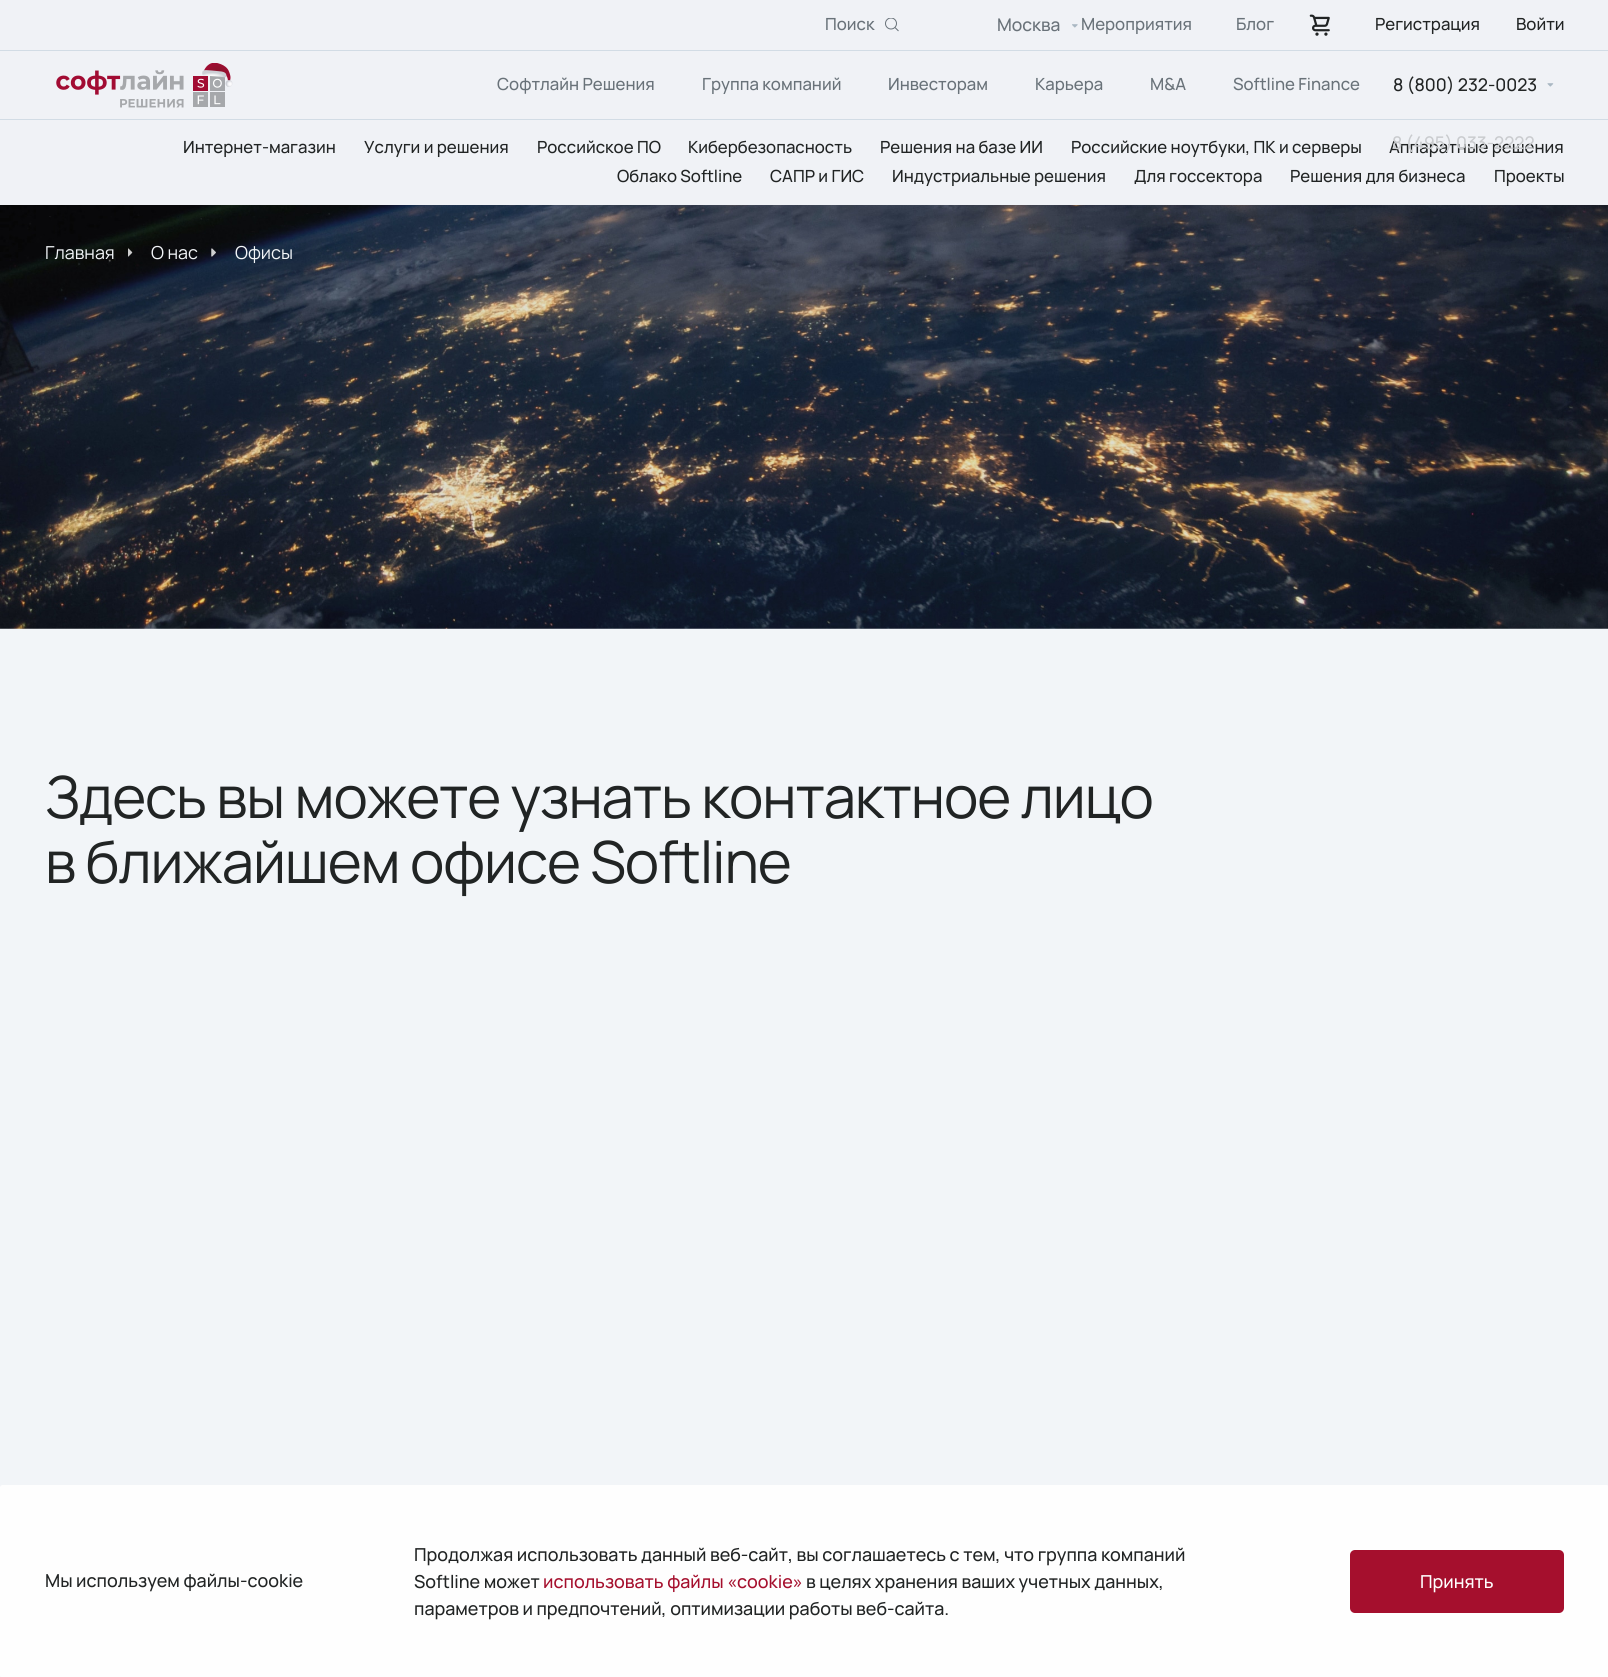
import math
import cairo

surface = cairo.ImageSurface(cairo.FORMAT_RGB24, 1608, 1677)
c = cairo.Context(surface)
options = cairo.FontOptions()
options.set_hint_metrics(cairo.HINT_METRICS_OFF)
options.set_hint_style(cairo.HINT_STYLE_NONE)
c.set_font_options(options)
c.set_miter_limit(4)
def C(code):
 c.set_source_rgb(*(v / 255 for v in bytes.fromhex(code[-6:])))
def F(family, size, italic, bold):
 c.select_font_face(family, cairo.FONT_SLANT_ITALIC if italic else cairo.FONT_SLANT_NORMAL, cairo.FONT_WEIGHT_BOLD if bold else cairo.FONT_WEIGHT_NORMAL)
 c.set_font_size(size)
def T(x, y, s):
 c.move_to(x, y)
 c.show_text(s)
def L(x, y, s, letter, word):
 c.move_to(x, y)
 for ch in s:
  c.show_text(ch)
  c.rel_move_to(letter + word * (ch == ' '), 0)
def R(x, y, w, h):
 c.rectangle(x, y, w, h)
 c.fill()
def Q(x, y, w, h, r):
 c.new_sub_path()
 for i, (u, v) in enumerate([(x + w - r, y + h - r), (x + r, y + h - r), (x + r, y + r), (x + w - r, y + r)]):
  c.arc(u, v, r, i * math.pi / 2, (i + 1) * math.pi / 2)
 c.close_path()
def I(path, x, y, w, h):
 c.save()
 c.set_source_surface(cairo.ImageSurface.create_from_png(path), x, y)
 c.rectangle(x, y, w, h)
 c.fill()
 c.restore()
C('f2f5f8')
c.paint()
C('f0f2f6')
R(0,0,1608,50)
C('d2dce5')
R(0,50,1608,1)
F('Manrope Medium',16.75,0,0)
C('697279')
T(825,30,'Поиск')
c.save()
c.rectangle(885,18,14,15)
c.clip()
c.arc(891,23.5,5.5,0,2 * math.pi)
c.set_line_width(1)
c.stroke()
c.restore()
c.new_path()
c.move_to(898.5,31)
c.line_to(895,27.5)
c.set_line_width(1)
c.stroke()
F('Manrope Medium',17.5,0,0)
T(997,31,'Москва')
I('1.png',1072,24,6,4)
F('Manrope Medium',16.75,0,0)
T(1081,30,'Мероприятия')
T(1236,30,'Блог')
I('2.png',1309,14,21,22)
C('212424')
T(1375,30,'Регистрация')
T(1516,30,'Войти')
C('f0f2f6')
R(0,51,1608,68)
C('d2dce5')
R(0,119,1608,1)
I('3.png',56,63,177,45)
C('697279')
T(497,90,'Софтлайн Решения')
T(702,90,'Группа компаний')
T(888,90,'Инвесторам')
T(1035,90,'Карьера')
T(1150,90,'M&A')
T(1233,90,'Softline Finance')
F('Manrope Medium',17.5,0,0)
C('212424')
T(1393,91,'8 (800) 232-0023')
I('4.png',1547,83,7,4)
C('f0f2f6')
R(0,120,1608,85)
F('Manrope Medium',16.75,0,0)
C('212424')
T(1389,153,'Аппаратные решения')
F('Manrope Medium',17.5,0,0)
C('c9cbce')
T(1392,149,'8 (495) 033-2222')
F('Manrope Medium',16.75,0,0)
C('212424')
T(183,153,'Интернет-магазин')
T(364,153,'Услуги и решения')
T(537,153,'Российское ПО')
T(688,153,'Кибербезопасность')
T(880,153,'Решения на базе ИИ')
T(1071,153,'Российские ноутбуки, ПК и серверы')
T(617,182,'Облако Softline')
T(770,182,'САПР и ГИС')
T(892,182,'Индустриальные решения')
T(1134,182,'Для госсектора')
T(1290,182,'Решения для бизнеса')
T(1494,182,'Проекты')
I('5.png',0,205,1608,424)
F('Manrope',17.9,0,0)
C('f2f5f8')
T(45,259,'Главная')
I('6.png',128,248,5,9)
T(151,259,'О нас')
I('7.png',211,248,5,9)
T(235,259,'Офисы')
F('Manrope',58.1,0,0)
C('212424')
L(45,818,'Здесь вы можете узнать контактное лицо',-1.15,0)
L(45,883,'в ближайшем офисе Softline',-1.15,0)
C('fefefe')
Q(0,1485,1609,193,2.5)
c.fill()
F('Manrope Medium',17.9,0,0)
C('212424')
T(45,1587,'Мы используем файлы-cookie')
T(414,1561,'Продолжая использовать данный веб-сайт, вы соглашаетесь с тем, что группа компаний')
T(414,1588,'Softline может')
C('a50f2d')
T(543,1588,'использовать файлы «cookie»')
C('212424')
T(806,1588,'в целях хранения ваших учетных данных,')
T(414,1615,'параметров и предпочтений, оптимизации работы веб-сайта.')
C('a50f2d')
Q(1350,1550,214,63,5)
c.fill()
C('ffffff')
T(1420,1588,'Принять')
surface.write_to_png('o.png')
